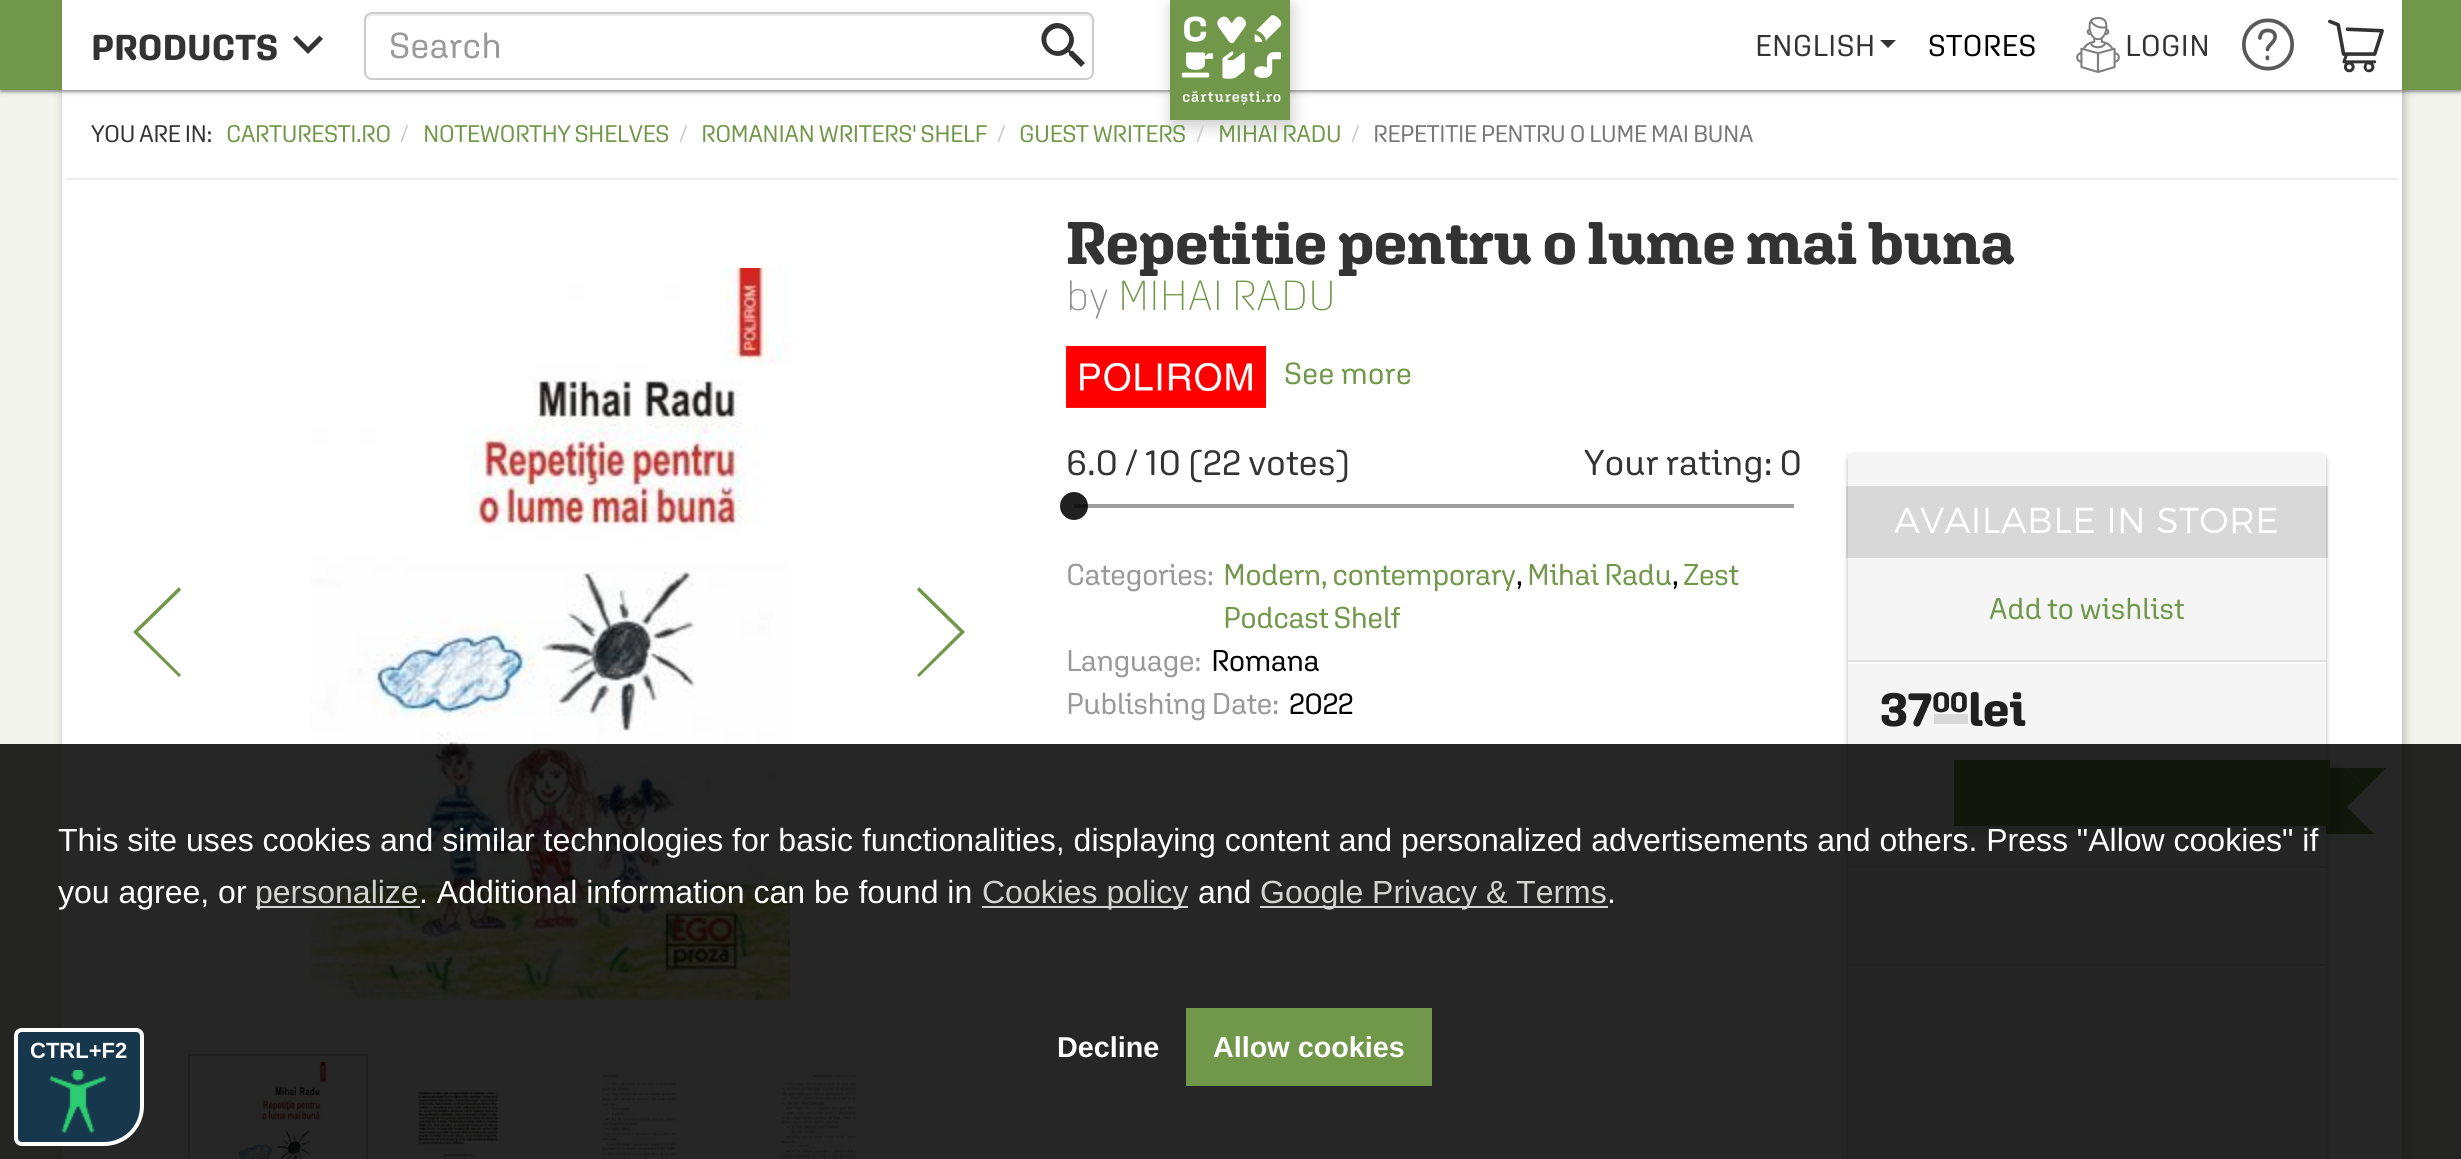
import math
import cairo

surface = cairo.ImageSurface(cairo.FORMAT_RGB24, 2461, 1159)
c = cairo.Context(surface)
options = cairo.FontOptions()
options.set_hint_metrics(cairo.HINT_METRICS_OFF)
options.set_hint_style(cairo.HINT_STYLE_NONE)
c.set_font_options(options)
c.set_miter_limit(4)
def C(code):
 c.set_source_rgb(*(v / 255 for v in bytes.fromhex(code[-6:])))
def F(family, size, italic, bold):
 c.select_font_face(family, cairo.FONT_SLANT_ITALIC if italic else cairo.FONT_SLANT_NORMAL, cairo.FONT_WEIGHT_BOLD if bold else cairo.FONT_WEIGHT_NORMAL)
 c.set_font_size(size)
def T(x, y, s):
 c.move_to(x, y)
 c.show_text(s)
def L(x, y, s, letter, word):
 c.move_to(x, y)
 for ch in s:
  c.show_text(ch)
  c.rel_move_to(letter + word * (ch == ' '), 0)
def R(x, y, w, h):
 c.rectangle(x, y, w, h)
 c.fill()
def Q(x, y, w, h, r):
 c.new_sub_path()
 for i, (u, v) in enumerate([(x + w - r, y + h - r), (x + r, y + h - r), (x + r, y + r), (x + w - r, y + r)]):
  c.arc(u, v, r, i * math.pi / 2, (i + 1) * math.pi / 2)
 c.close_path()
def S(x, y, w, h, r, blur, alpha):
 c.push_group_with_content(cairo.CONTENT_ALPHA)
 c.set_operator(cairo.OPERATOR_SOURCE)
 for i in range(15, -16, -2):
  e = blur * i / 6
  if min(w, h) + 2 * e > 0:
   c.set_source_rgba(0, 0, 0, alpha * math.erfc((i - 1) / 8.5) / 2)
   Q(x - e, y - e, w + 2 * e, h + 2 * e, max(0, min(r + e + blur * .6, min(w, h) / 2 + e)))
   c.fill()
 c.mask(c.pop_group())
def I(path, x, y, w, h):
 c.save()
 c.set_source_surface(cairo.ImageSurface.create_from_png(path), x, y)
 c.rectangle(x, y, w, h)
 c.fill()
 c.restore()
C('f2f4ed')
c.paint()
C('000000')
S(64,2,2340,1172,0,5,.27)
C('ffffff')
R(62,90,2340,1069)
C('000000')
S(2,6,2458,86,0,1,.12)
S(0,2,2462,90,0,1,.14)
S(0,2,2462,90,0,3,.2)
C('71984a')
R(0,0,2461,90)
C('ffffff')
R(62,0,1230,90)
F('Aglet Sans',36,0,1)
C('333333')
T(91,60,'PRODUCTS')
c.new_path()
c.move_to(319.5,35.5)
c.line_to(323,39)
c.line_to(308,54)
c.line_to(293,39)
c.line_to(296.5,35.5)
c.line_to(308,47)
c.close_path()
c.fill()
C('ececec')
c.new_path()
c.move_to(372,16)
c.line_to(1086,16)
c.curve_to(1089,16,1092,19,1092,22)
c.line_to(1092,20)
c.curve_to(1092,17,1089,14,1086,14)
c.line_to(372,14)
c.curve_to(369,14,366,17,366,20)
c.line_to(366,22)
c.curve_to(366,19,369,16,372,16)
c.close_path()
c.fill()
Q(365,13,728,66,7)
C('cccccc')
c.stroke()
F('Aglet Sans',36,0,0)
C('999999')
T(389,58,'Search')
C('333333')
c.new_path()
c.move_to(1050,48)
c.curve_to(1060,58,1076,42,1066,32)
c.curve_to(1055,21,1039,37,1050,48)
c.close_path()
c.move_to(1073,51)
c.line_to(1085,63)
c.line_to(1081,67)
c.line_to(1069,55)
c.line_to(1069,53)
c.line_to(1068,52)
c.curve_to(1053,65,1032,43,1046,28)
c.curve_to(1061,13,1083,35,1070,50)
c.line_to(1071,51)
c.close_path()
c.fill()
C('ffffff')
R(1292,0,1110,90)
C('000000')
S(1172,6,120,120,0,8,.21)
C('71984a')
R(1170,0,120,120)
I('1.png',1181,15,101,90)
I('2.png',2328,19,56,54)
F('Aglet Sans',30,0,0)
C('333333')
L(1755,56,'ENGLISH',.25,0)
c.new_path()
c.move_to(1880,40)
c.line_to(1896,40)
c.line_to(1888,48)
c.close_path()
c.fill()
C('000000')
L(1928,56,'STORES',.25,0)
I('3.png',2076,17,44,56)
C('333333')
L(2125,56,'LOGIN',.25,0)
I('4.png',2242,18,52,53)
C('ededed')
R(66,178,2332,2)
F('Aglet Sans',24,0,0)
C('333333')
L(91,142,'YOU ARE IN:',-.6,0)
C('71984a')
L(226,142,'CARTURESTI.RO',-.6,0)
C('cccccc')
L(400,142,'/',-.6,0)
C('71984a')
L(423,142,'NOTEWORTHY SHELVES',-.6,0)
C('cccccc')
L(679,142,'/',-.6,0)
C('71984a')
L(701,142,'ROMANIAN WRITERS\' SHELF',-.6,0)
C('cccccc')
L(997,142,'/',-.6,0)
C('71984a')
L(1019,142,'GUEST WRITERS',-.6,0)
C('cccccc')
L(1196,142,'/',-.6,0)
C('71984a')
L(1218,142,'MIHAI RADU',-.6,0)
C('cccccc')
L(1351,142,'/',-.6,0)
C('777777')
L(1373,142,'REPETITIE PENTRU O LUME MAI BUNA',-.6,0)
C('71984a')
c.new_path()
c.move_to(179,677)
c.line_to(133,632)
c.line_to(179,587)
c.line_to(181,590)
c.line_to(138,632)
c.line_to(181,675)
c.close_path()
c.fill()
I('5.png',310,268,480,732)
c.new_path()
c.move_to(919,677)
c.line_to(965,632)
c.line_to(919,587)
c.line_to(917,590)
c.line_to(960,632)
c.line_to(917,675)
c.close_path()
c.fill()
c.rectangle(189,1055,178,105)
C('cccccc')
c.stroke()
I('6.png',235,1062,97,97)
I('7.png',418,1091,80,68)
I('8.png',600,1073,78,86)
I('9.png',780,1073,78,86)
F('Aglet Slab',60,0,1)
C('333333')
L(1066,264,'Repetitie pentru o lume mai buna',-.6,0)
I('10.png',1070,280,38,39)
F('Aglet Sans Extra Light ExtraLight',42,0,0)
C('71984a')
T(1118,310,'MIHAI RADU')
I('11.png',1066,346,200,62)
F('Aglet Sans',30.5,0,0)
T(1284,384,'See more')
F('Aglet Sans',36,0,0)
C('333333')
T(1066,475,'6.0 / 10 (22 votes)')
T(1584,475,'Your rating: 0')
C('9e9e9e')
R(1074,504,720,4)
c.set_source_rgba(0,0,0,0.87)
c.new_path()
c.arc(1074,506,14,0,2 * math.pi)
c.fill()
F('Aglet Sans',30,0,0)
C('999999')
L(1066,585,'Categories:',-.6,0)
C('71984a')
L(1223,585,'Modern, contemporary',-.6,0)
C('000000')
L(1516,585,',',-.6,0)
C('71984a')
L(1527,585,'Mihai Radu',-.6,0)
C('000000')
L(1672,585,',',-.6,0)
C('71984a')
L(1683,585,'Zest',-.6,0)
L(1223,628,'Podcast Shelf',-.6,0)
C('999999')
L(1066,671,'Language:',-.6,0)
C('000000')
L(1211,671,'Romana',-.6,0)
C('999999')
L(1066,714,'Publishing Date:',-.6,0)
C('000000')
L(1289,714,'2022',-.6,0)
C('000000')
S(1848,456,478,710,4,1,.14)
S(1848,456,478,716,4,3,.2)
C('f5f5f5')
Q(1848,454,478,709,4)
c.fill()
C('dfdfdf')
R(1848,866,478,2)
c.set_source_rgba(0,0,0,0.12)
R(1846,486,482,72)
F('Montserrat Light',36,0,0)
C('ffffff')
L(1894,533,'AVAILABLE IN STORE',.4,0)
F('Aglet Sans',30,0,0)
C('71984a')
L(1989,619,'Add to wishlist',-.25,0)
C('dfdfdf')
R(1848,660,478,2)
C('fefefe')
R(1848,662,478,2)
F('Aglet Sans',48,0,1)
C('202020')
L(1880,726,'37',-.6,0)
F('Aglet Sans',28.75,0,1)
L(1932,712,'00',-.6,0)
C('d8d8d8')
R(1934,714,34,10)
F('Aglet Sans',48,0,1)
C('202020')
L(1968,726,'lei',-.6,0)
C('71984a')
R(2326,768,20,66)
c.new_path()
c.move_to(2346,768)
c.line_to(2386,768)
c.line_to(2366,788)
c.close_path()
c.fill()
c.new_path()
c.move_to(2346,808)
c.line_to(2346,768)
c.line_to(2366,788)
c.close_path()
c.fill()
c.new_path()
c.move_to(2374,834)
c.line_to(2346,834)
c.line_to(2360,820)
c.close_path()
c.fill()
c.new_path()
c.move_to(2346,834)
c.line_to(2346,806)
c.line_to(2360,820)
c.close_path()
c.fill()
C('000000')
S(1962,766,376,66,0,4,.12)
C('71984a')
R(1954,760,376,66)
C('fefefe')
R(1848,868,478,2)
C('dfdfdf')
R(1848,964,478,2)
C('fefefe')
R(1848,966,478,2)
c.set_source_rgba(0,0,0,0.85)
R(0,744,2461,415)
F('Liberation Sans',32,0,0)
C('ffffff')
T(58,851,'This site uses cookies and similar technologies for basic functionalities, displaying content and personalized advertisements and others. Press "Allow cookies" if')
T(58,903,'you agree, or')
c.set_source_rgba(1,1,1,0.8)
R(256,906,164,2)
C('d3d3d2')
T(255,903,'personalize')
C('ffffff')
T(419,903,'. Additional information can be found in')
c.set_source_rgba(1,1,1,0.8)
R(982,906,206,2)
C('d3d3d2')
T(982,903,'Cookies policy')
C('ffffff')
T(1198,903,'and')
c.set_source_rgba(1,1,1,0.8)
R(1260,906,348,2)
C('d3d3d2')
T(1260,903,'Google Privacy & Terms')
C('ffffff')
T(1607,903,'.')
F('Liberation Sans',28.75,0,1)
T(1057,1057,'Decline')
C('71984a')
R(1186,1008,246,78)
C('ffffff')
T(1213,1057,'Allow cookies')
C('17384c')
c.new_path()
c.move_to(22,1030)
c.line_to(136,1030)
c.curve_to(139.5,1030,142,1032.5,142,1036)
c.line_to(142,1106)
c.curve_to(142,1127,125,1144,104,1144)
c.line_to(22,1144)
c.curve_to(18.5,1144,16,1141.5,16,1138)
c.line_to(16,1036)
c.curve_to(16,1032.5,18.5,1030,22,1030)
c.close_path()
c.fill_preserve()
C('ffffff')
c.set_line_width(4)
c.stroke()
F('Liberation Sans',22,0,1)
T(30,1058,'CTRL+F2')
I('12.png',49,1070,58,63)
surface.write_to_png('o.png')
